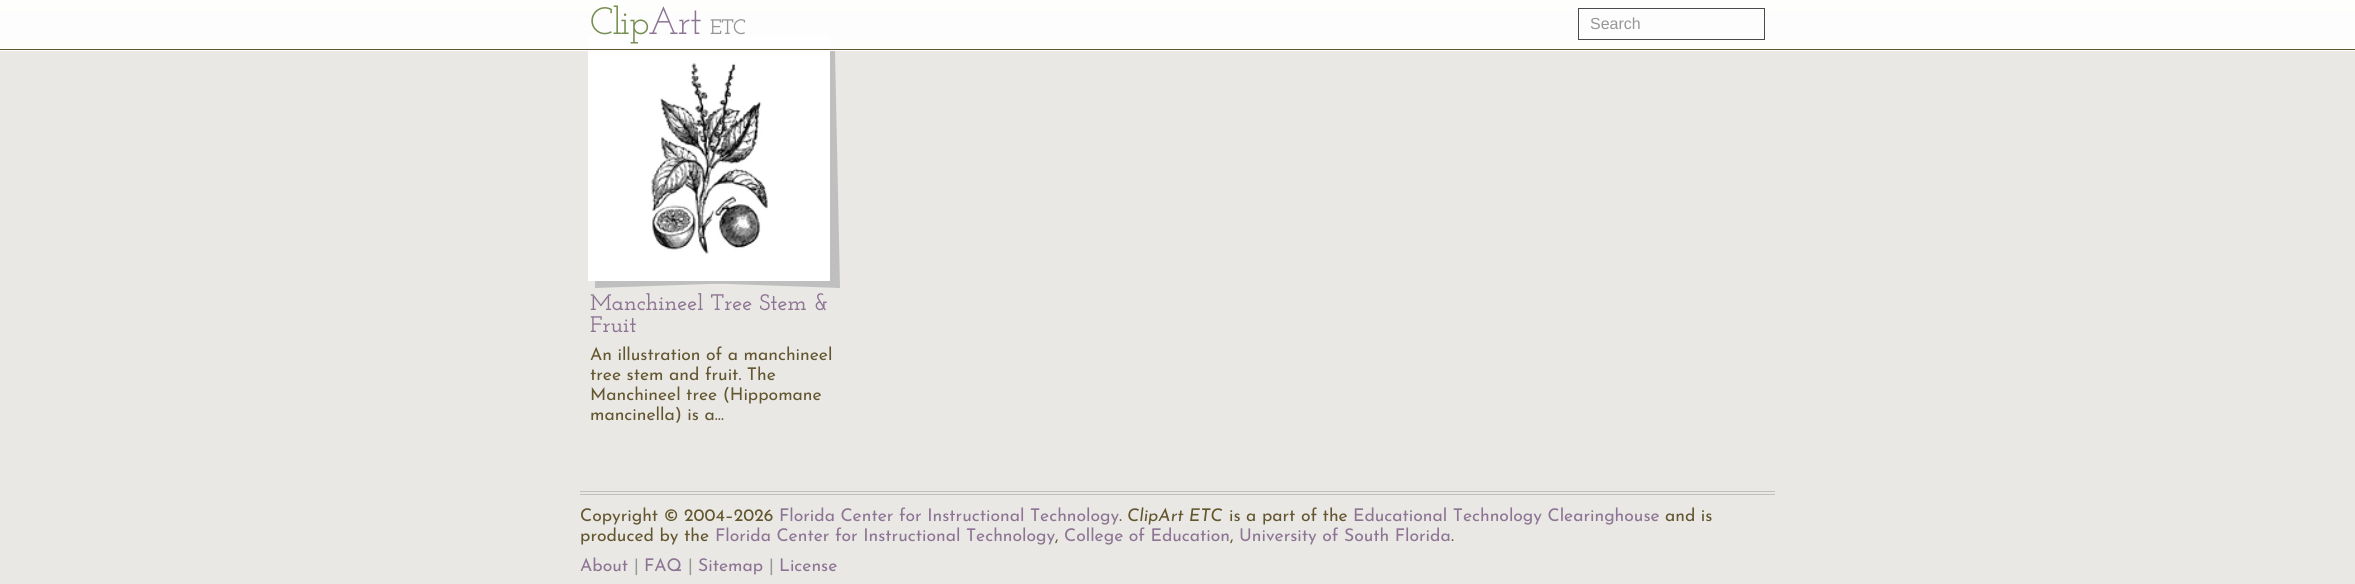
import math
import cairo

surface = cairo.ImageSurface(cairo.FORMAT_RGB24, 2355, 584)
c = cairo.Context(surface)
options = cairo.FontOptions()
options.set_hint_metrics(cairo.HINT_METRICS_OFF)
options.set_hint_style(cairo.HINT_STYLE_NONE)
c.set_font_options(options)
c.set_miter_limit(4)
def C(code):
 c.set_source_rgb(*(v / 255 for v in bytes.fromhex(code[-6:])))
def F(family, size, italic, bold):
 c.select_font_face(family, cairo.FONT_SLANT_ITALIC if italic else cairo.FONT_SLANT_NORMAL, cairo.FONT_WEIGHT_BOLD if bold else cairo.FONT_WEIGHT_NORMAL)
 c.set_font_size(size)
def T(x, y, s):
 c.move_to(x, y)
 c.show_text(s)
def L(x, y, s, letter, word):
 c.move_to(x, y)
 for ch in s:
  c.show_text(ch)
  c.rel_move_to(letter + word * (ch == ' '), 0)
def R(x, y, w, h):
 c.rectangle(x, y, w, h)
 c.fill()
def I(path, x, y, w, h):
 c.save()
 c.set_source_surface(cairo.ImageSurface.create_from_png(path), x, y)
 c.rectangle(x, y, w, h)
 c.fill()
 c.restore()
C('e9e8e5')
c.paint()
C('bfbfbf')
c.new_path()
c.move_to(610,42)
c.line_to(835,50)
c.line_to(840,288)
c.line_to(615,280)
c.close_path()
c.fill()
c.new_path()
c.move_to(600,50)
c.line_to(825,42)
c.line_to(820,280)
c.line_to(595,288)
c.close_path()
c.fill()
c.rectangle(589.5,37.5,239,242)
C('ffffff')
c.set_line_width(3)
c.stroke()
R(591,39,236,239)
R(0,50,2355,1)
c.set_source_rgba(1,1,1,0.72)
R(0,0,2355,49)
gradient = cairo.LinearGradient(1178,0,1178,50)
gradient.add_color_stop_rgba(0,1,1,1,.8)
gradient.add_color_stop_rgba(1,1,1,1,.6)
c.set_source(gradient)
R(0,0,2355,49)
C('63552e')
R(0,49,2355,1)
F('Josefin Slab',38,0,0)
C('758d50')
L(590,34,'Cl',-1,0)
L(620,34,'ip',-1,0)
C('8d7493')
L(648,34,'Art',-1,0)
F('Josefin Slab SemiBold',21,0,0)
C('969696')
L(710,34,'ETC',-1,0)
c.rectangle(1578.5,8.5,186,31)
C('4a4a4a')
c.set_line_width(1)
c.stroke()
F('Liberation Sans',16,0,0)
C('969696')
T(1590,29,'Search')
I('1.png',651,63,117,191)
F('Josefin Slab SemiBold',22.5,0,0)
C('8d7493')
T(590,310,'Manchineel Tree Stem &')
T(590,332,'Fruit')
F('Josefin Sans',17.5,0,0)
C('63552e')
T(590,360,'An illustration of a manchineel')
T(590,380,'tree stem and fruit. The')
T(590,400,'Manchineel tree (Hippomane')
T(590,420,'mancinella) is a…')
C('bfbfbf')
R(580,491,1195,1)
R(580,494,1195,1)
C('63552e')
T(580,521,'Copyright © 2004–2026')
C('8d7493')
T(779,521,'Florida Center for Instructional Technology')
C('63552e')
T(1119,521,'.')
F('Josefin Sans Thin',17.5,1,0)
T(1127,521,'ClipArt ETC')
F('Josefin Sans',17.5,0,0)
T(1229,521,'is a part of the')
C('8d7493')
T(1353,521,'Educational Technology Clearinghouse')
C('63552e')
T(1665,521,'and is')
T(580,541,'produced by the')
C('8d7493')
T(715,541,'Florida Center for Instructional Technology')
C('63552e')
T(1055,541,',')
C('8d7493')
T(1064,541,'College of Education')
C('63552e')
T(1230,541,',')
C('8d7493')
T(1239,541,'University of South Florida')
C('63552e')
T(1451,541,'.')
C('8d7493')
T(580,571,'About')
C('969696')
T(634,571,'|')
C('8d7493')
T(644,571,'FAQ')
C('969696')
T(688,571,'|')
C('8d7493')
T(698,571,'Sitemap')
C('969696')
T(769,571,'|')
C('8d7493')
T(779,571,'License')
surface.write_to_png('o.png')
